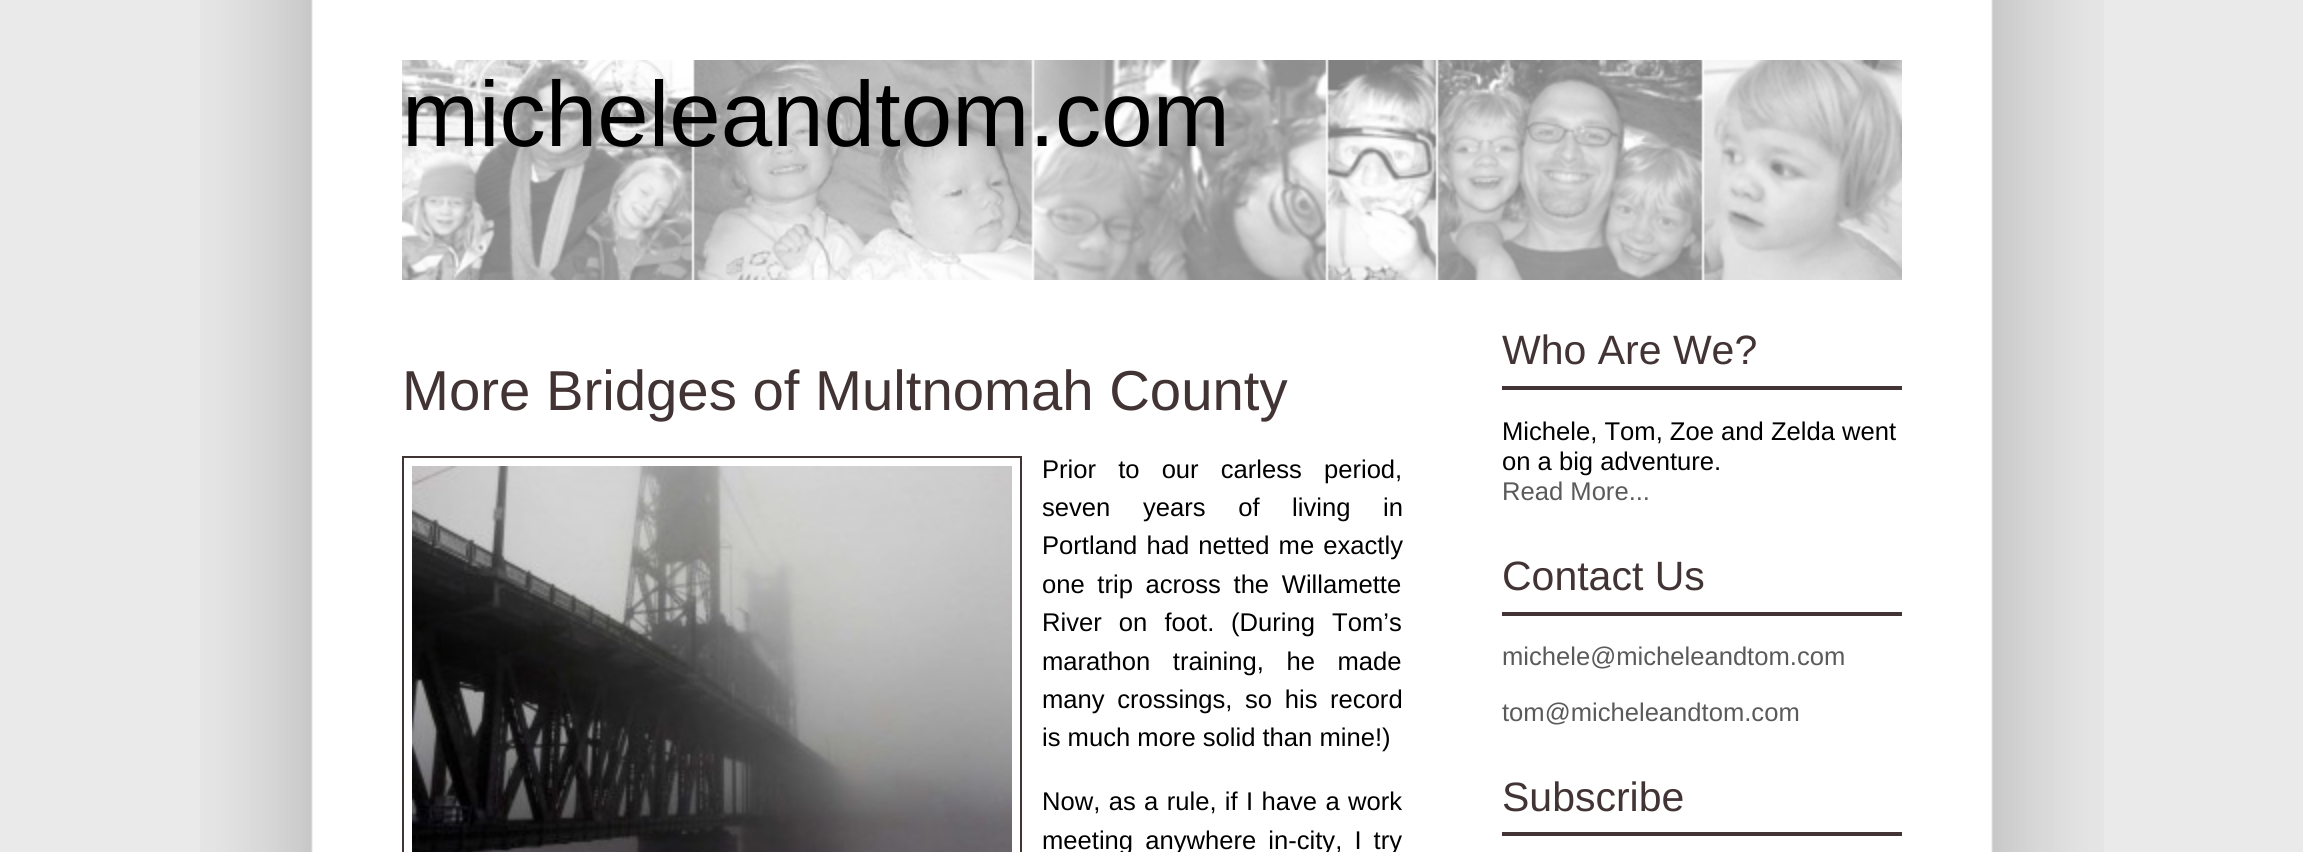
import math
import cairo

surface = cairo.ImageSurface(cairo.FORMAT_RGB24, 2303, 852)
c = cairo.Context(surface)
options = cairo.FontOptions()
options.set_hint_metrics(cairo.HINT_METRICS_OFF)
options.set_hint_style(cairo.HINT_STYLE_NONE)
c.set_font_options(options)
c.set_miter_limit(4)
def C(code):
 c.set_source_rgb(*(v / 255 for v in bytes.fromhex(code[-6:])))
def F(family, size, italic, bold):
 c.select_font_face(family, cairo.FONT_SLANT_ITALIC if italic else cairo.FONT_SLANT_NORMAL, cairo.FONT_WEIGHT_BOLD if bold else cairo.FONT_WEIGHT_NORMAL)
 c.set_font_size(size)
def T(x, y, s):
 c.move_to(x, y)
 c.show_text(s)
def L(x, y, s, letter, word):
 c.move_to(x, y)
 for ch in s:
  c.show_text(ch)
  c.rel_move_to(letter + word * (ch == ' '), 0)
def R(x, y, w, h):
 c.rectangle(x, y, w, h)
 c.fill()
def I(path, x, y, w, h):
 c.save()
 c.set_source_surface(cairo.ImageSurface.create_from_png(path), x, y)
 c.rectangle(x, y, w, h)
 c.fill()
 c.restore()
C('eaeaea')
c.paint()
I('1.png',200,0,1904,852)
I('2.png',402,60,1500,220)
F('Liberation Sans',92.5,0,0)
C('000000')
T(402,146,'micheleandtom.com')
F('Liberation Sans',56.3,0,0)
C('423434')
T(402,410,'More Bridges of Multnomah County')
c.rectangle(403,457,618,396)
c.stroke()
I('3.png',412,466,600,386)
F('Liberation Sans',25.6,0,0)
C('000000')
L(1042,478,'Prior to our carless period,',0,15)
L(1042,516,'seven years of living in',0,25.5)
L(1042,554,'Portland had netted me exactly',0,2)
L(1042,593,'one trip across the Willamette',0,5.5)
L(1042,631,'River on foot.',0,10)
L(1231,631,'(During Tom’s',0,10)
L(1042,670,'marathon training, he made',0,15.5)
L(1042,708,'many crossings, so his record',0,5.5)
T(1042,746,'is much more solid than mine!)')
L(1042,810,'Now, as a rule, if I have a work',0,1.25)
L(1042,849,'meeting anywhere in-city, I try',0,5)
C('423434')
R(1502,386,400,4)
F('Liberation Sans',41,0,0)
T(1502,364,'Who Are We?')
F('Liberation Sans',25.6,0,0)
C('000000')
T(1502,440,'Michele, Tom, Zoe and Zelda went')
T(1502,470,'on a big adventure.')
C('5a5a5a')
T(1502,500,'Read More...')
C('423434')
R(1502,612,400,4)
F('Liberation Sans',41,0,0)
T(1502,590,'Contact Us')
F('Liberation Sans',25.6,0,0)
C('5a5a5a')
T(1502,665,'michele@micheleandtom.com')
T(1502,721,'tom@micheleandtom.com')
C('423434')
R(1502,832,400,4)
F('Liberation Sans',41,0,0)
T(1502,811,'Subscribe')
surface.write_to_png('o.png')
